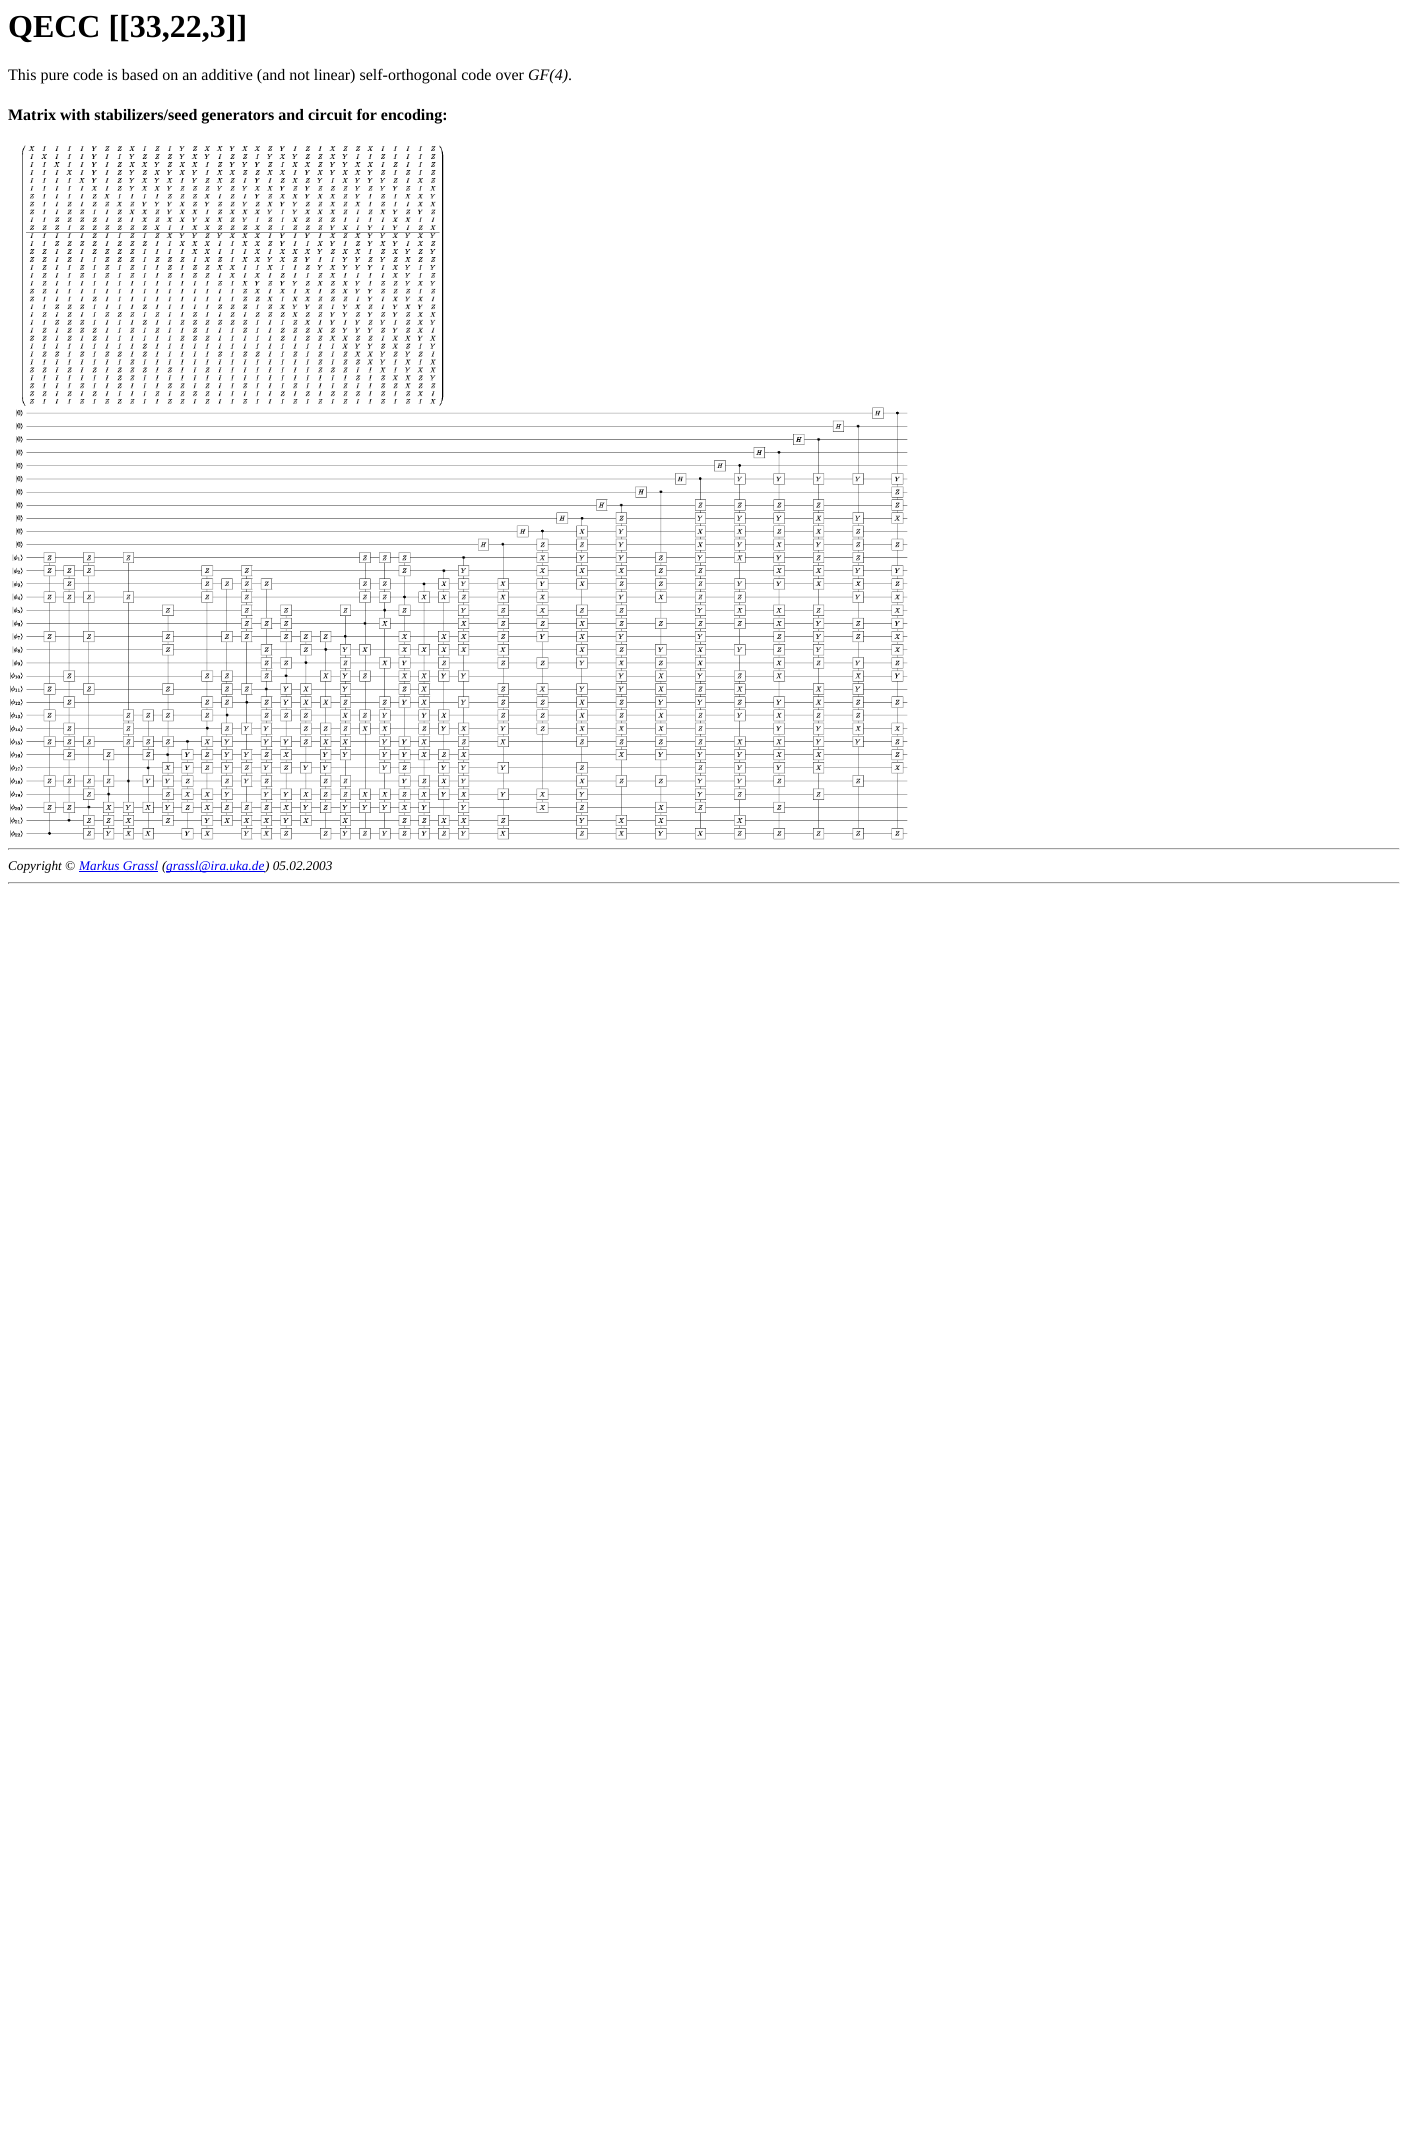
import math
import cairo

surface = cairo.ImageSurface(cairo.FORMAT_RGB24, 1408, 2147)
c = cairo.Context(surface)
options = cairo.FontOptions()
options.set_hint_metrics(cairo.HINT_METRICS_OFF)
options.set_hint_style(cairo.HINT_STYLE_NONE)
c.set_font_options(options)
c.set_miter_limit(4)
def C(code):
 c.set_source_rgb(*(v / 255 for v in bytes.fromhex(code[-6:])))
def F(family, size, italic, bold):
 c.select_font_face(family, cairo.FONT_SLANT_ITALIC if italic else cairo.FONT_SLANT_NORMAL, cairo.FONT_WEIGHT_BOLD if bold else cairo.FONT_WEIGHT_NORMAL)
 c.set_font_size(size)
def T(x, y, s):
 c.move_to(x, y)
 c.show_text(s)
def R(x, y, w, h):
 c.rectangle(x, y, w, h)
 c.fill()
def I(path, x, y, w, h):
 c.save()
 c.set_source_surface(cairo.ImageSurface.create_from_png(path), x, y)
 c.rectangle(x, y, w, h)
 c.fill()
 c.restore()
C('ffffff')
c.paint()
F('Liberation Serif',32,0,1)
C('000000')
T(8,37,'QECC [[33,22,3]]')
F('Liberation Serif',16,0,0)
T(8,80,'This pure code is based on an additive (and not linear) self-orthogonal code over')
F('Liberation Serif',16,1,0)
T(528,80,'GF(4)')
F('Liberation Serif',16,0,0)
T(568,80,'.')
F('Liberation Serif',16,0,1)
T(8,120,'Matrix with stabilizers/seed generators and circuit for encoding:')
I('1.png',10,145,898,695)
C('9f9f9f')
R(8,848,1392,1)
C('eeeeee')
R(1399,848,1,2)
R(8,849,1392,1)
C('9f9f9f')
R(8,848,1,2)
F('Liberation Serif',13.25,1,0)
C('000000')
T(8,870,'Copyright ©')
C('0000ee')
T(79,870,'Markus Grassl')
R(79,871,79,1)
C('000000')
T(162,870,'(')
C('0000ee')
R(166,871,99,1)
T(166,870,'grassl@ira.uka.de')
C('000000')
T(265,870,') 05.02.2003')
C('9f9f9f')
R(8,882,1392,1)
C('eeeeee')
R(1399,882,1,2)
R(8,883,1392,1)
C('9f9f9f')
R(8,882,1,2)
surface.write_to_png('o.png')
